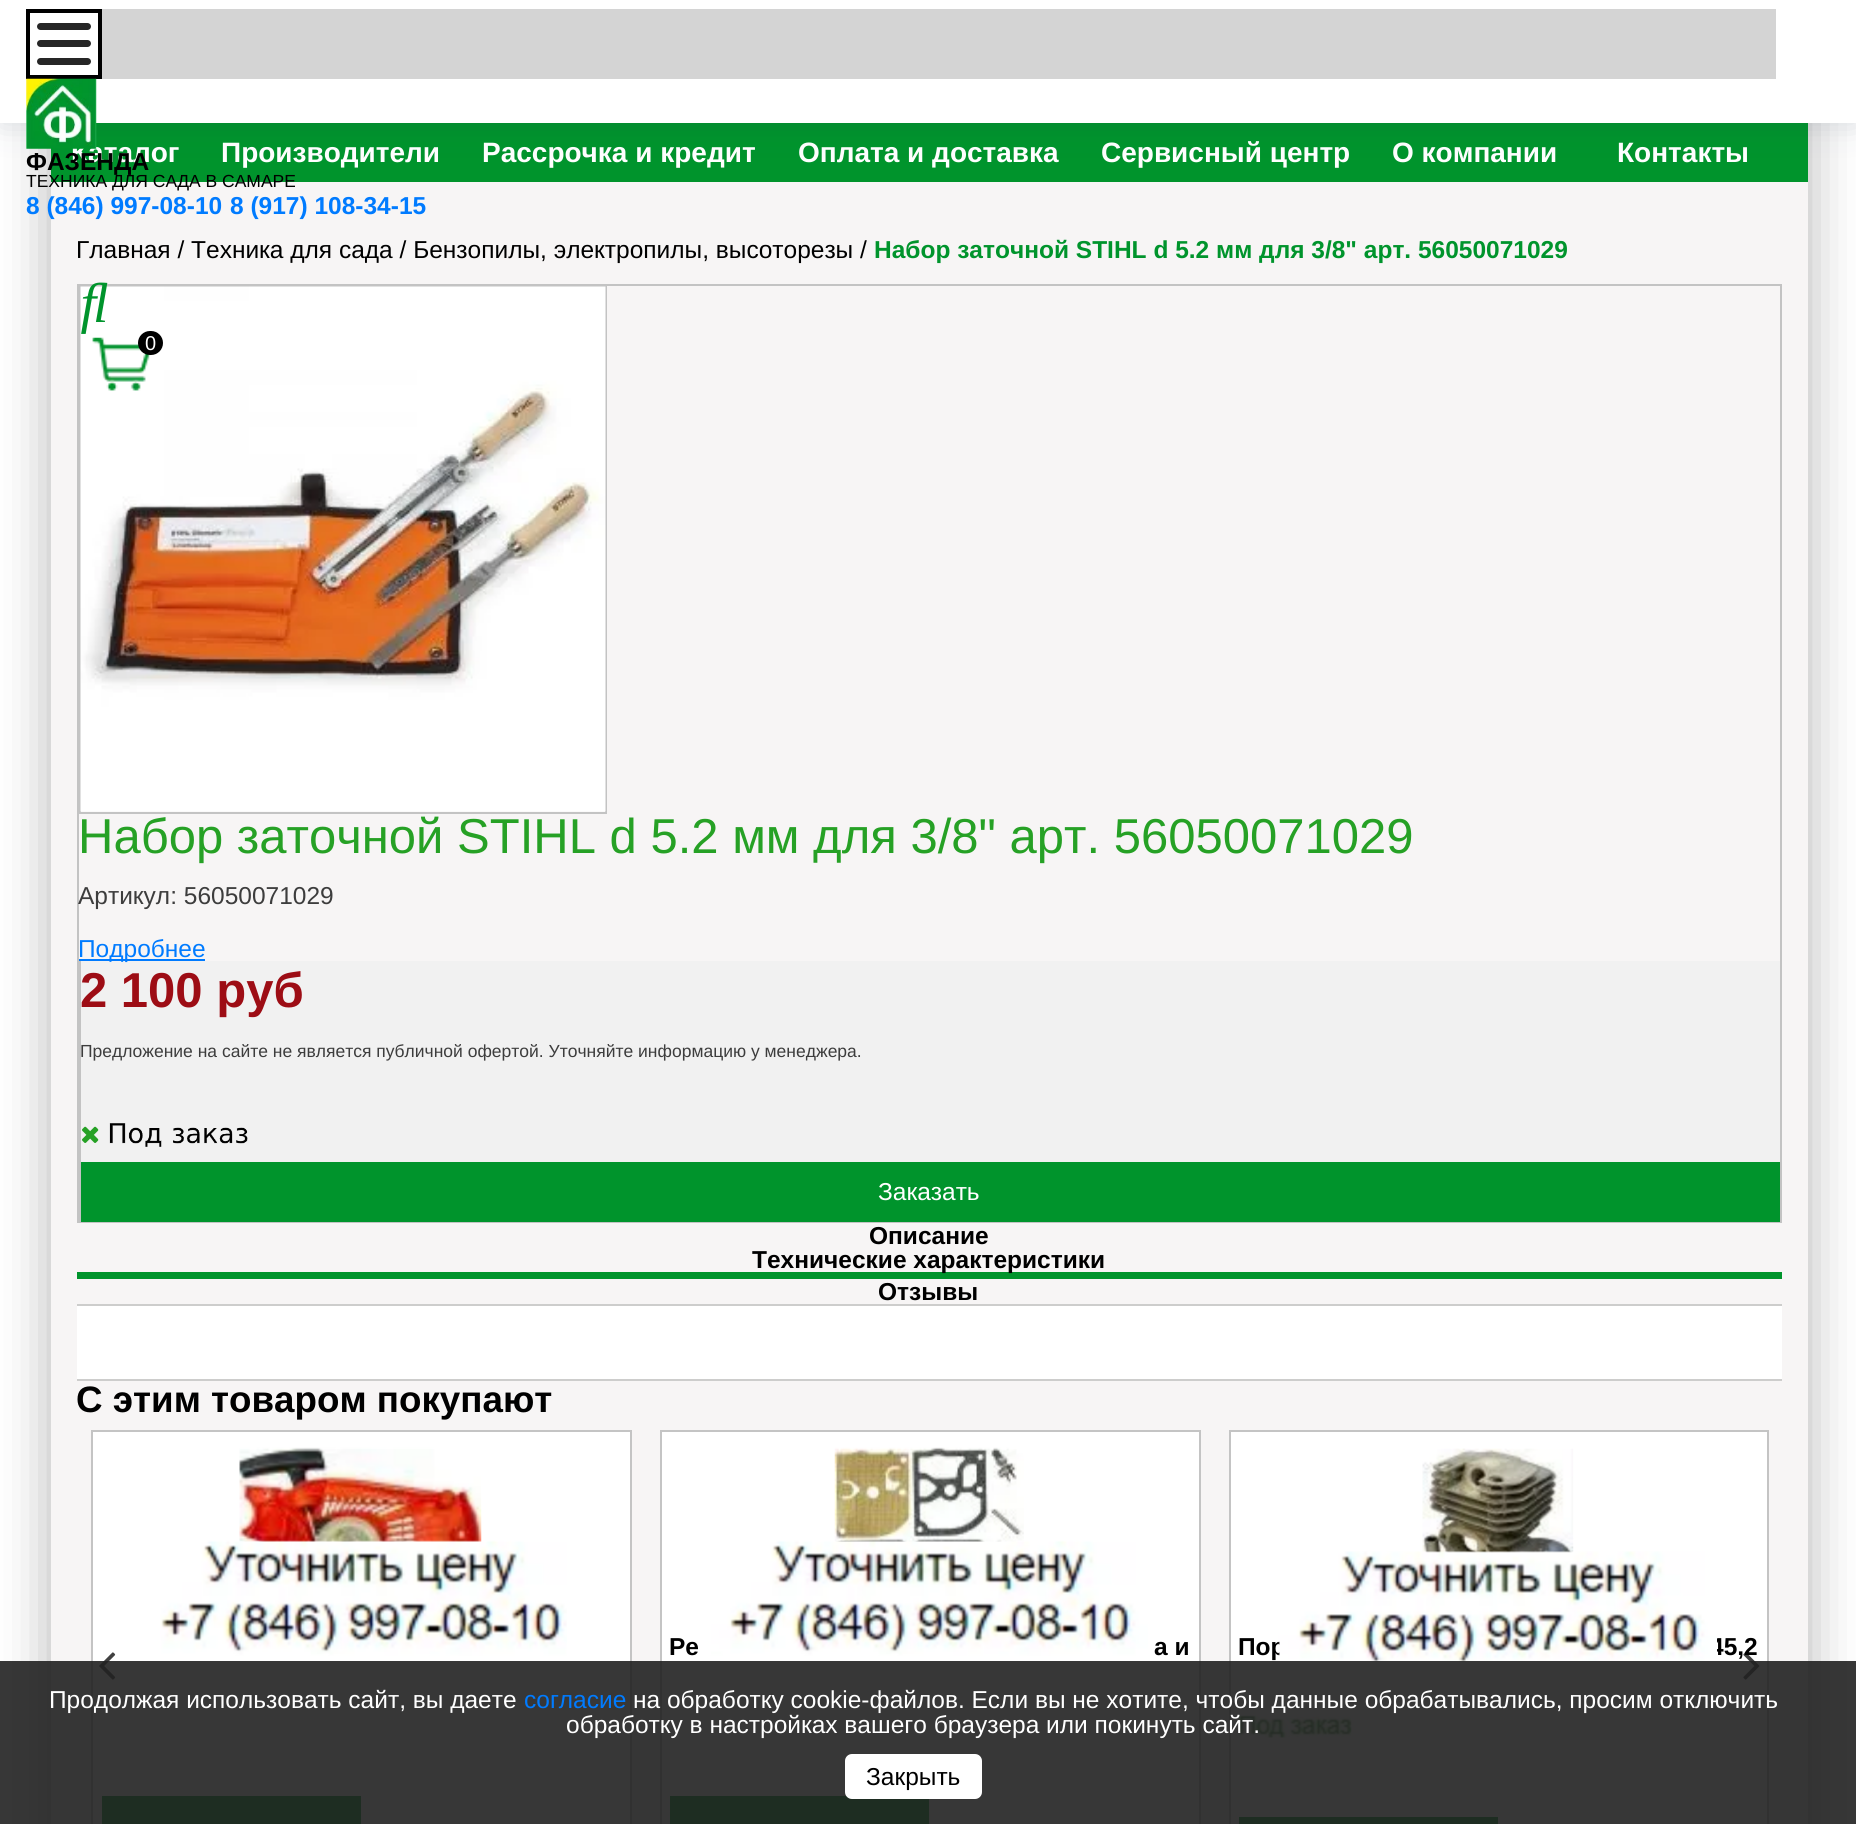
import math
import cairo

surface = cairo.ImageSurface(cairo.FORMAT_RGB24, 1856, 1824)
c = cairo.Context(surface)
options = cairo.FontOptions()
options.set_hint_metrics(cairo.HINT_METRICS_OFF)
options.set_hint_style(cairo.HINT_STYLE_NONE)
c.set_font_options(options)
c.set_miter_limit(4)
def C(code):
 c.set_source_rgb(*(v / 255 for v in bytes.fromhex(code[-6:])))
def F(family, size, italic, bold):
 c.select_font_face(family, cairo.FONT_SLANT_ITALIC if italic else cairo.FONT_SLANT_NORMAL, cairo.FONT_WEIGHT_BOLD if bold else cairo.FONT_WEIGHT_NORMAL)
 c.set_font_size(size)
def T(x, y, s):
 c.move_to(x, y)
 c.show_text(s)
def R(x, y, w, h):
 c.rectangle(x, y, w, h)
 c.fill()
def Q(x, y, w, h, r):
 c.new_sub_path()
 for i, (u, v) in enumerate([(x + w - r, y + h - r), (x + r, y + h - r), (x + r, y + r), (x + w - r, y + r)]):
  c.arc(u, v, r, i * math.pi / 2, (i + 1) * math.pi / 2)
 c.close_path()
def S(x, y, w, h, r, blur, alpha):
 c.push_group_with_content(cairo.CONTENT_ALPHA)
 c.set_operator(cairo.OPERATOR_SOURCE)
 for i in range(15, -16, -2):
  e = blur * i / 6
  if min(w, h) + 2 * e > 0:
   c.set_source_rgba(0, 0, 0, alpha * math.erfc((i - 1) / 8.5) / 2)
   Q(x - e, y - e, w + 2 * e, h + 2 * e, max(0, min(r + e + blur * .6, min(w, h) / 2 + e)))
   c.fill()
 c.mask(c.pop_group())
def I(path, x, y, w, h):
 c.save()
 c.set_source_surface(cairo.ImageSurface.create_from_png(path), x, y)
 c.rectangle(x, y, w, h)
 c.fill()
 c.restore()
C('ffffff')
c.paint()
C('000000')
S(51,68,1757,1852,18,26,.3)
C('f7f5f5')
R(51,182,1757,1642)
C('00942c')
R(51,123,1757,59)
F('Liberation Sans',28,0,1)
C('ffffff')
T(71,162,'Каталог')
T(221,162,'Производители')
T(482,162,'Рассрочка и кредит')
T(798,162,'Оплата и доставка')
T(1101,162,'Сервисный центр')
T(1392,162,'О компании')
T(1617,162,'Контакты')
F('Liberation Sans',24.5,0,0)
C('000000')
T(76,258,'Главная / Техника для сада / Бензопилы, электропилы, высоторезы /')
F('Liberation Sans',24.5,0,1)
C('00942c')
T(874,258,'Набор заточной STIHL d 5.2 мм для 3/8" арт. 56050071029')
c.rectangle(78,285,1703,937)
C('c3c3c3')
c.stroke()
c.rectangle(80,286,526,527)
c.stroke()
I('1.png',80,286,526,526)
F('Liberation Sans',49,0,0)
C('26a125')
T(78,853,'Набор заточной STIHL d 5.2 мм для 3/8" арт. 56050071029')
F('Liberation Sans',24.5,0,0)
C('3d3d3d')
T(78,904,'Артикул: 56050071029')
C('007bff')
R(79,959,126,2)
C('f1f1f1')
R(81,961,1699,201)
C('c3c3c3')
R(79,961,2,261)
C('007bff')
T(78,957,'Подробнее')
F('Liberation Sans',49,0,1)
C('9d0d15')
T(80,1007,'2 100 руб')
F('Liberation Sans',17.5,0,0)
C('3d3d3d')
T(80,1057,'Предложение на сайте не является публичной офертой. Уточняйте информацию у менеджера.')
I('2.png',82,1126,17,17)
I('3.png',109,1123,139,24)
C('00942c')
R(81,1162,1699,60)
F('Liberation Sans',24.5,0,0)
C('ffffff')
T(878,1200,'Заказать')
F('Liberation Sans',24.5,0,1)
C('000000')
T(869,1244,'Описание')
C('00942c')
R(77,1272,1705,7)
C('000000')
T(752,1268,'Технические характеристики')
T(878,1300,'Отзывы')
C('ffffff')
R(77,1306,1705,73)
C('cdcdcc')
R(77,1304,1705,2)
R(77,1379,1705,2)
F('Liberation Sans',36.75,0,1)
C('000000')
T(76,1412,'С этим товаром покупают')
C('ffffff')
c.rectangle(92,1431,539,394)
c.fill_preserve()
C('c4c4c4')
c.stroke()
I('4.png',239,1447,243,95)
I('5.png',160,1540,407,116)
C('00942c')
R(102,1796,259,28)
C('ffffff')
c.rectangle(661,1431,539,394)
c.fill_preserve()
C('c4c4c4')
c.stroke()
I('6.png',834,1447,190,95)
I('7.png',709,1540,440,116)
F('Liberation Sans',24.5,0,1)
C('000000')
T(669,1655,'Ре')
T(1154,1655,'а и')
C('00942c')
R(670,1796,259,28)
C('ffffff')
c.rectangle(1230,1431,538,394)
c.fill_preserve()
C('c4c4c4')
c.stroke()
I('8.png',1422,1448,152,105)
C('000000')
T(1238,1655,'Пор')
T(1710,1655,'45,2')
I('9.png',1278,1551,439,115)
I('10.png',1238,1715,114,23)
C('00942c')
R(1239,1817,259,7)
I('11.png',99,1652,17,28)
I('12.png',1743,1652,17,28)
C('21374f')
S(0,0,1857,123,0,16,.17)
C('ffffff')
R(0,0,1856,123)
C('d4d4d4')
R(102,9,1674,70)
c.rectangle(28,11,72,66)
C('000000')
c.set_line_width(4)
c.stroke()
C('262626')
Q(37,23,54,7,3.5)
c.fill()
Q(37,40,54,7,3.5)
c.fill()
Q(37,58,54,7,3.5)
c.fill()
I('13.png',26,78,71,71)
C('000000')
T(26,170,'ФАЗЕНДА')
F('Liberation Sans',17.5,0,0)
T(26,187,'ТЕХНИКА ДЛЯ САДА В САМАРЕ')
F('Liberation Sans',24.5,0,1)
C('007bff')
T(26,214,'8 (846) 997-08-10')
T(230,214,'8 (917) 108-34-15')
I('14.png',81,282,27,52)
I('15.png',92,337,59,54)
C('000000')
Q(138,331,25,24,12)
c.fill()
F('Liberation Sans',20,0,0)
C('ffffff')
T(145,350,'0')
c.set_source_rgba(0.133,0.133,0.133,0.9)
R(0,1661,1856,163)
F('Liberation Sans',24.5,0,0)
C('ffffff')
T(49,1708,'Продолжая использовать сайт, вы даете')
C('007bff')
T(524,1708,'согласие')
C('ffffff')
T(633,1708,'на обработку cookie-файлов. Если вы не хотите, чтобы данные обрабатывались, просим отключить')
T(566,1733,'обработку в настройках вашего браузера или покинуть сайт.')
Q(845,1754,137,45,7)
c.fill()
C('000000')
T(866,1785,'Закрыть')
surface.write_to_png('o.png')
